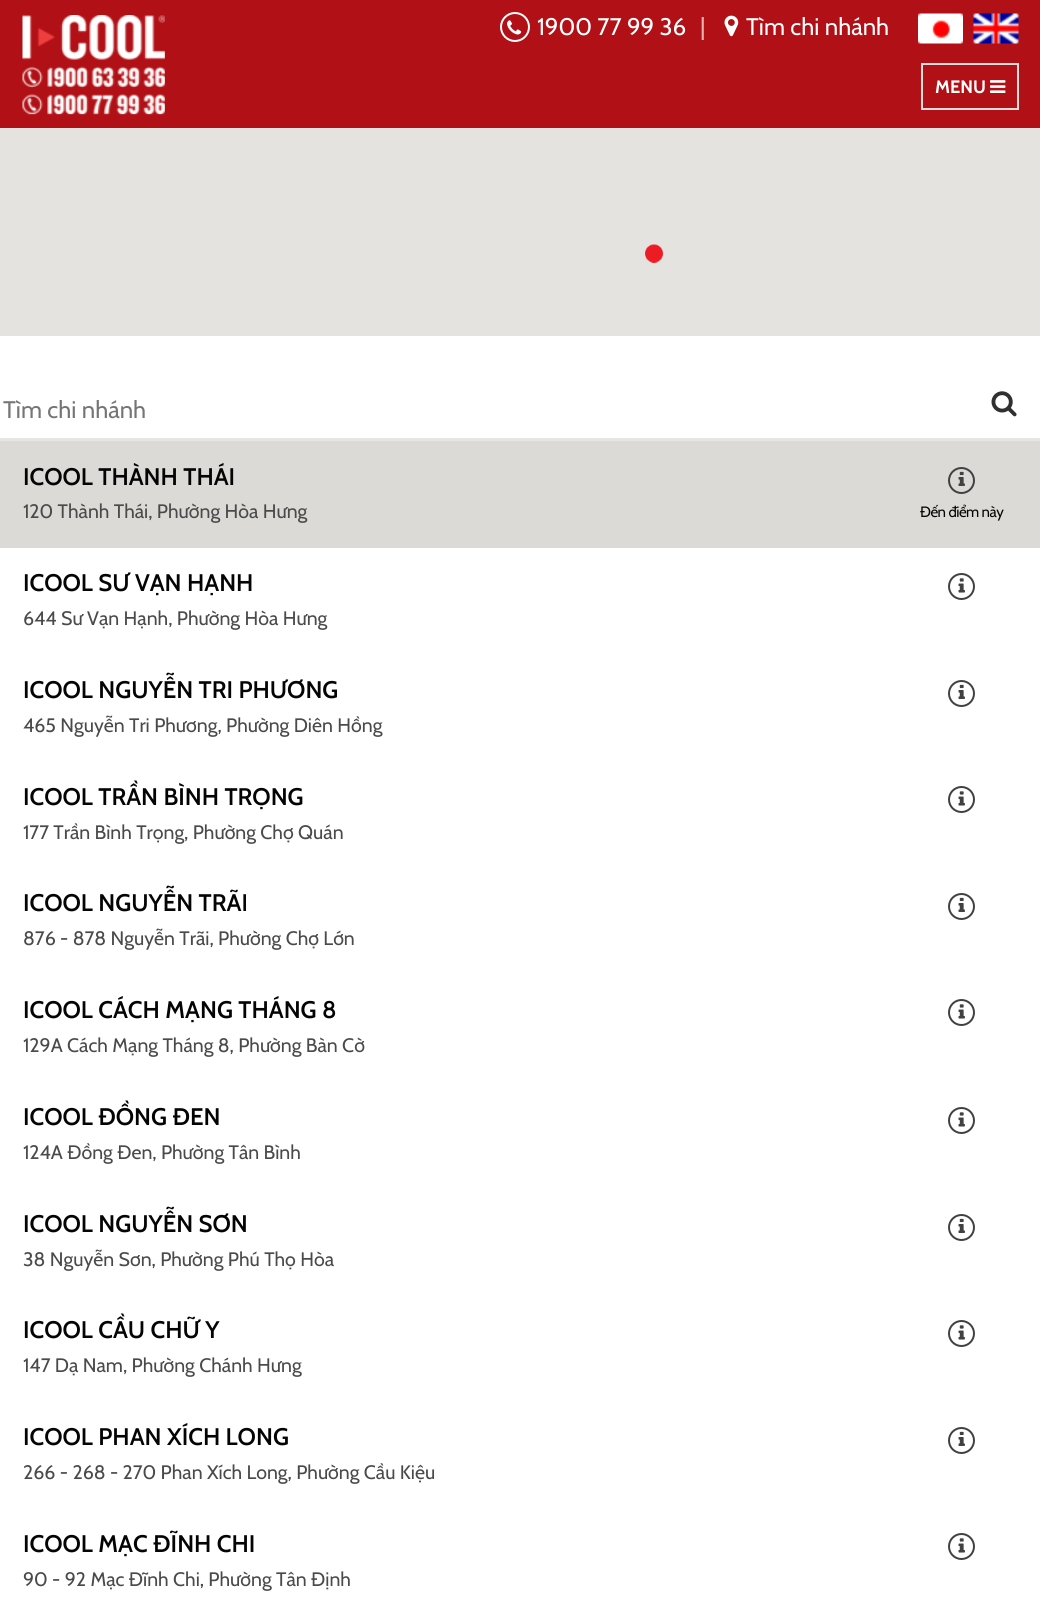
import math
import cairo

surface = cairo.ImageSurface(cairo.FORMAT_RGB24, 1040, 1600)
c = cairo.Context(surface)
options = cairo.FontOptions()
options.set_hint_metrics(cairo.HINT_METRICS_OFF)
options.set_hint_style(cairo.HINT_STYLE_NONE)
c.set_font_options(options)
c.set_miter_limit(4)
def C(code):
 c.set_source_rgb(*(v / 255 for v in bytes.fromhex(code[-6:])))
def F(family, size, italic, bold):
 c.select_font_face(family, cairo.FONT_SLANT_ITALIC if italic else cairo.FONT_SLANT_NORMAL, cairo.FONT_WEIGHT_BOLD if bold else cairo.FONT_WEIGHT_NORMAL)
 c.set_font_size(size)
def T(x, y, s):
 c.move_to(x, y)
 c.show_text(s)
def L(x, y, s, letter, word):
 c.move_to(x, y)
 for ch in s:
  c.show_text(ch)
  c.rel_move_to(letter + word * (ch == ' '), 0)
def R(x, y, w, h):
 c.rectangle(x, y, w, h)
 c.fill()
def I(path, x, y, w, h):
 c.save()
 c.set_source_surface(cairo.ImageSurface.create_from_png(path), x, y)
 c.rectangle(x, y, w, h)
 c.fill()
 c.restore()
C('ffffff')
c.paint()
C('b11116')
R(0,0,1040,128)
c.arc(515,27,14,0,2 * math.pi)
C('ffffff')
c.stroke()
I('1.png',507,20,15,15)
F('Cabin',24,0,0)
T(537,35,'1900 77 99 36')
C('e5b1b3')
T(700,35,'|')
I('2.png',724,15,15,22)
C('ffffff')
T(746,35,'Tìm chi nhánh')
I('3.png',918,13,45,31)
I('4.png',973,13,46,31)
I('5.png',22,15,143,100)
c.rectangle(922,64,96,45)
C('dddddd')
c.stroke()
F('Cabin',18,0,1)
C('ffffff')
T(935,93,'MENU')
I('6.png',990,80,16,13)
C('e5e3df')
R(0,128,1040,208)
I('7.png',645,244,18,19)
C('e7e6e3')
R(0,438,1040,3)
F('Cabin',24,0,0)
C('757575')
T(3,418,'Tìm chi nhánh')
I('8.png',991,391,26,26)
C('dbdad6')
R(0,441,1040,107)
F('Cabin SemiBold',24,0,0)
C('040404')
T(23,485,'ICOOL THÀNH THÁI')
F('Cabin',19.5,0,0)
C('4a4a4a')
T(23,518,'120 Thành Thái, Phường Hòa Hưng')
c.new_path()
c.arc(961.5,480.5,12.5,0,2 * math.pi)
C('414141')
c.stroke()
I('9.png',958,471,7,15)
F('Cabin',15,0,0)
C('040404')
L(920,517,'Đến điểm này',-.5,0)
F('Cabin SemiBold',24,0,0)
T(23,591,'ICOOL SƯ VẠN HẠNH')
c.new_path()
c.arc(961.5,586.5,12.5,0,2 * math.pi)
C('414141')
c.stroke()
I('10.png',958,578,7,15)
F('Cabin',19.5,0,0)
C('4a4a4a')
T(23,625,'644 Sư Vạn Hạnh, Phường Hòa Hưng')
F('Cabin SemiBold',24,0,0)
C('040404')
T(23,698,'ICOOL NGUYỄN TRI PHƯƠNG')
c.new_path()
c.arc(961.5,693.5,12.5,0,2 * math.pi)
C('414141')
c.stroke()
I('11.png',958,684,7,15)
F('Cabin',19.5,0,0)
C('4a4a4a')
T(23,732,'465 Nguyễn Tri Phương, Phường Diên Hồng')
F('Cabin SemiBold',24,0,0)
C('040404')
T(23,805,'ICOOL TRẦN BÌNH TRỌNG')
c.new_path()
c.arc(961.5,799.5,12.5,0,2 * math.pi)
C('414141')
c.stroke()
I('10.png',958,791,7,15)
F('Cabin',19.5,0,0)
C('4a4a4a')
T(23,839,'177 Trần Bình Trọng, Phường Chợ Quán')
F('Cabin SemiBold',24,0,0)
C('040404')
T(23,911,'ICOOL NGUYỄN TRÃI')
c.new_path()
c.arc(961.5,906.5,12.5,0,2 * math.pi)
C('414141')
c.stroke()
I('11.png',958,897,7,15)
F('Cabin',19.5,0,0)
C('4a4a4a')
T(23,945,'876 - 878 Nguyễn Trãi, Phường Chợ Lớn')
F('Cabin SemiBold',24,0,0)
C('040404')
T(23,1018,'ICOOL CÁCH MẠNG THÁNG 8')
c.new_path()
c.arc(961.5,1012.5,12.5,0,2 * math.pi)
C('414141')
c.stroke()
I('10.png',958,1004,7,15)
F('Cabin',19.5,0,0)
C('4a4a4a')
T(23,1052,'129A Cách Mạng Tháng 8, Phường Bàn Cờ')
F('Cabin SemiBold',24,0,0)
C('040404')
T(23,1125,'ICOOL ĐỒNG ĐEN')
c.new_path()
c.arc(961.5,1120.5,12.5,0,2 * math.pi)
C('414141')
c.stroke()
I('10.png',958,1112,7,15)
F('Cabin',19.5,0,0)
C('4a4a4a')
T(23,1159,'124A Đồng Đen, Phường Tân Bình')
F('Cabin SemiBold',24,0,0)
C('040404')
T(23,1232,'ICOOL NGUYỄN SƠN')
c.new_path()
c.arc(961.5,1227.5,12.5,0,2 * math.pi)
C('414141')
c.stroke()
I('11.png',958,1218,7,15)
F('Cabin',19.5,0,0)
C('4a4a4a')
T(23,1266,'38 Nguyễn Sơn, Phường Phú Thọ Hòa')
F('Cabin SemiBold',24,0,0)
C('040404')
T(23,1338,'ICOOL CẦU CHỮ Y')
c.new_path()
c.arc(961.5,1333.5,12.5,0,2 * math.pi)
C('414141')
c.stroke()
I('10.png',958,1325,7,15)
F('Cabin',19.5,0,0)
C('4a4a4a')
T(23,1372,'147 Dạ Nam, Phường Chánh Hưng')
F('Cabin SemiBold',24,0,0)
C('040404')
T(23,1445,'ICOOL PHAN XÍCH LONG')
c.new_path()
c.arc(961.5,1440.5,12.5,0,2 * math.pi)
C('414141')
c.stroke()
I('11.png',958,1431,7,15)
F('Cabin',19.5,0,0)
C('4a4a4a')
T(23,1479,'266 - 268 - 270 Phan Xích Long, Phường Cầu Kiệu')
F('Cabin SemiBold',24,0,0)
C('040404')
T(23,1552,'ICOOL MẠC ĐĨNH CHI')
c.new_path()
c.arc(961.5,1546.5,12.5,0,2 * math.pi)
C('414141')
c.stroke()
I('10.png',958,1538,7,15)
F('Cabin',19.5,0,0)
C('4a4a4a')
T(23,1586,'90 - 92 Mạc Đĩnh Chi, Phường Tân Định')
surface.write_to_png('o.png')
